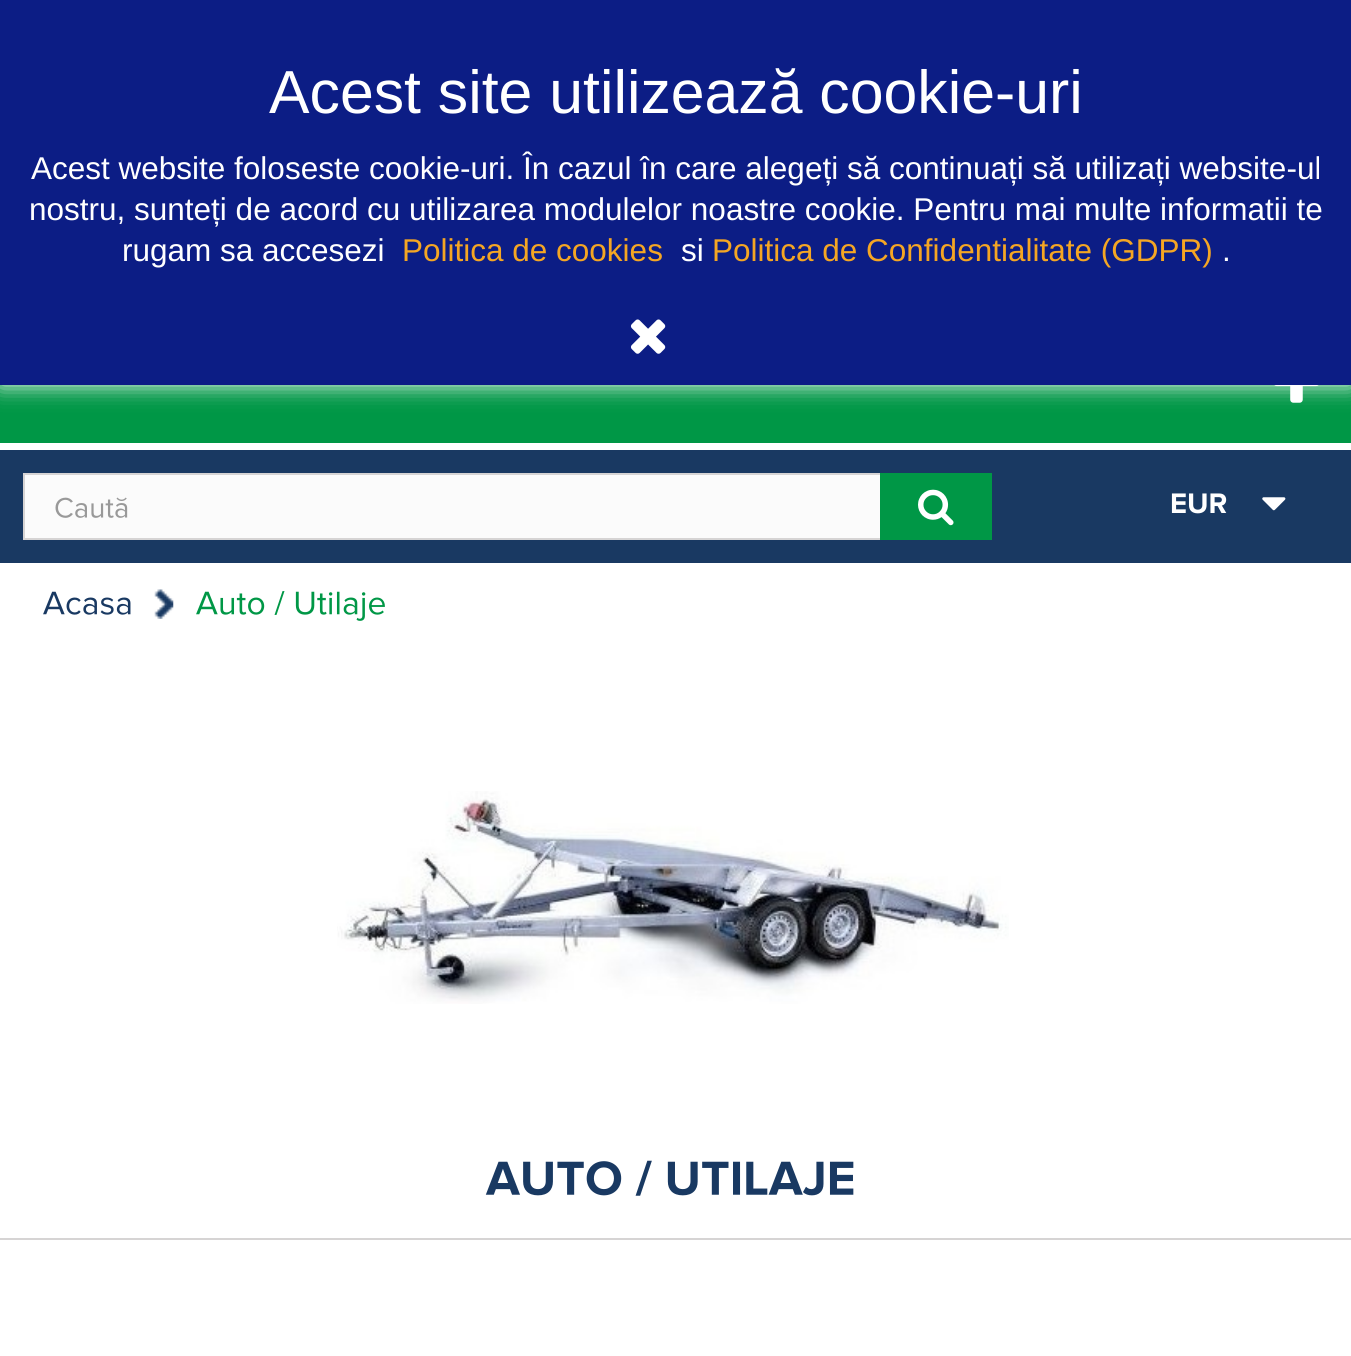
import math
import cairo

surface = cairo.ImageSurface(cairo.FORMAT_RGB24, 1351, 1356)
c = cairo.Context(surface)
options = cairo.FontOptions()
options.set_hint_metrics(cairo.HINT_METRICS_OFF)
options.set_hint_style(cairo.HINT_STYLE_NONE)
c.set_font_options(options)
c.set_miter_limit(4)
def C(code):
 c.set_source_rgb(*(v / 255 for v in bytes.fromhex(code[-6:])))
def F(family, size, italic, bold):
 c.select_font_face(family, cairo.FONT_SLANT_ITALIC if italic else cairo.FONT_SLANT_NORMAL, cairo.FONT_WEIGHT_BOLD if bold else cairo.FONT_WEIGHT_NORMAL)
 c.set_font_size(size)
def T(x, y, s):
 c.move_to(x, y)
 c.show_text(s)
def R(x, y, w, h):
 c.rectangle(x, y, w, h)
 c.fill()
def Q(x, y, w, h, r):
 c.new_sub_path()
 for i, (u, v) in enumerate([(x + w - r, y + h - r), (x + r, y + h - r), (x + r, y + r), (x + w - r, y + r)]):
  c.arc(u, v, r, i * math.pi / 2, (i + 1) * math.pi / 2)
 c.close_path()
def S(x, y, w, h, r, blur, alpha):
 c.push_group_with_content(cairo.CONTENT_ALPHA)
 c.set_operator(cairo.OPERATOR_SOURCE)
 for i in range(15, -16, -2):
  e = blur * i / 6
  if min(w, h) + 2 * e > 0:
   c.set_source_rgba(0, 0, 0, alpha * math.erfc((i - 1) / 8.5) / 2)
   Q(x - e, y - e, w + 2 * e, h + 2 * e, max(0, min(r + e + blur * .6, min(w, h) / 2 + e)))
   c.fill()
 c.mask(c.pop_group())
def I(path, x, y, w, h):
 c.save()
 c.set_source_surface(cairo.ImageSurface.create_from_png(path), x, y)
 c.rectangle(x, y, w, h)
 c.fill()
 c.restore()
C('ffffff')
c.paint()
C('009746')
R(0,385,1351,58)
I('2.png',1274,385,45,18)
C('ffffff')
S(0,0,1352,385,0,11,1)
C('0c1d85')
R(0,0,1351,385)
F('Liberation Sans',60.75,0,0)
C('ffffff')
T(269,113,'Acest site utilizează cookie-uri')
F('Liberation Sans',31.5,0,0)
T(31,179,'Acest website foloseste cookie-uri. În cazul în care alegeți să continuați să utilizați website-ul')
T(29,220,'nostru, sunteți de acord cu utilizarea modulelor noastre cookie. Pentru mai multe informatii te')
T(122,261,'rugam sa accesezi')
C('f5a623')
T(402,261,'Politica de cookies')
C('ffffff')
T(681,261,'si')
C('f5a623')
T(712,261,'Politica de Confidentialitate (GDPR)')
C('ffffff')
T(1222,261,'.')
I('1.png',630,319,36,35)
C('193962')
R(0,450,1351,113)
C('fbfbfb')
R(25,475,855,63)
c.rectangle(24,474,967,65)
C('d6d4d4')
c.stroke()
I('3.png',55,497,73,21)
C('009746')
R(880,473,112,67)
I('4.png',918,489,36,37)
I('5.png',1171,493,56,21)
I('6.png',1262,497,24,14)
I('7.png',43,591,88,24)
I('8.png',154,589,20,30)
I('9.png',196,591,189,30)
I('10.png',337,791,672,213)
C('d6d4d4')
R(0,1238,1351,2)
I('11.png',485,1160,369,36)
surface.write_to_png('o.png')
